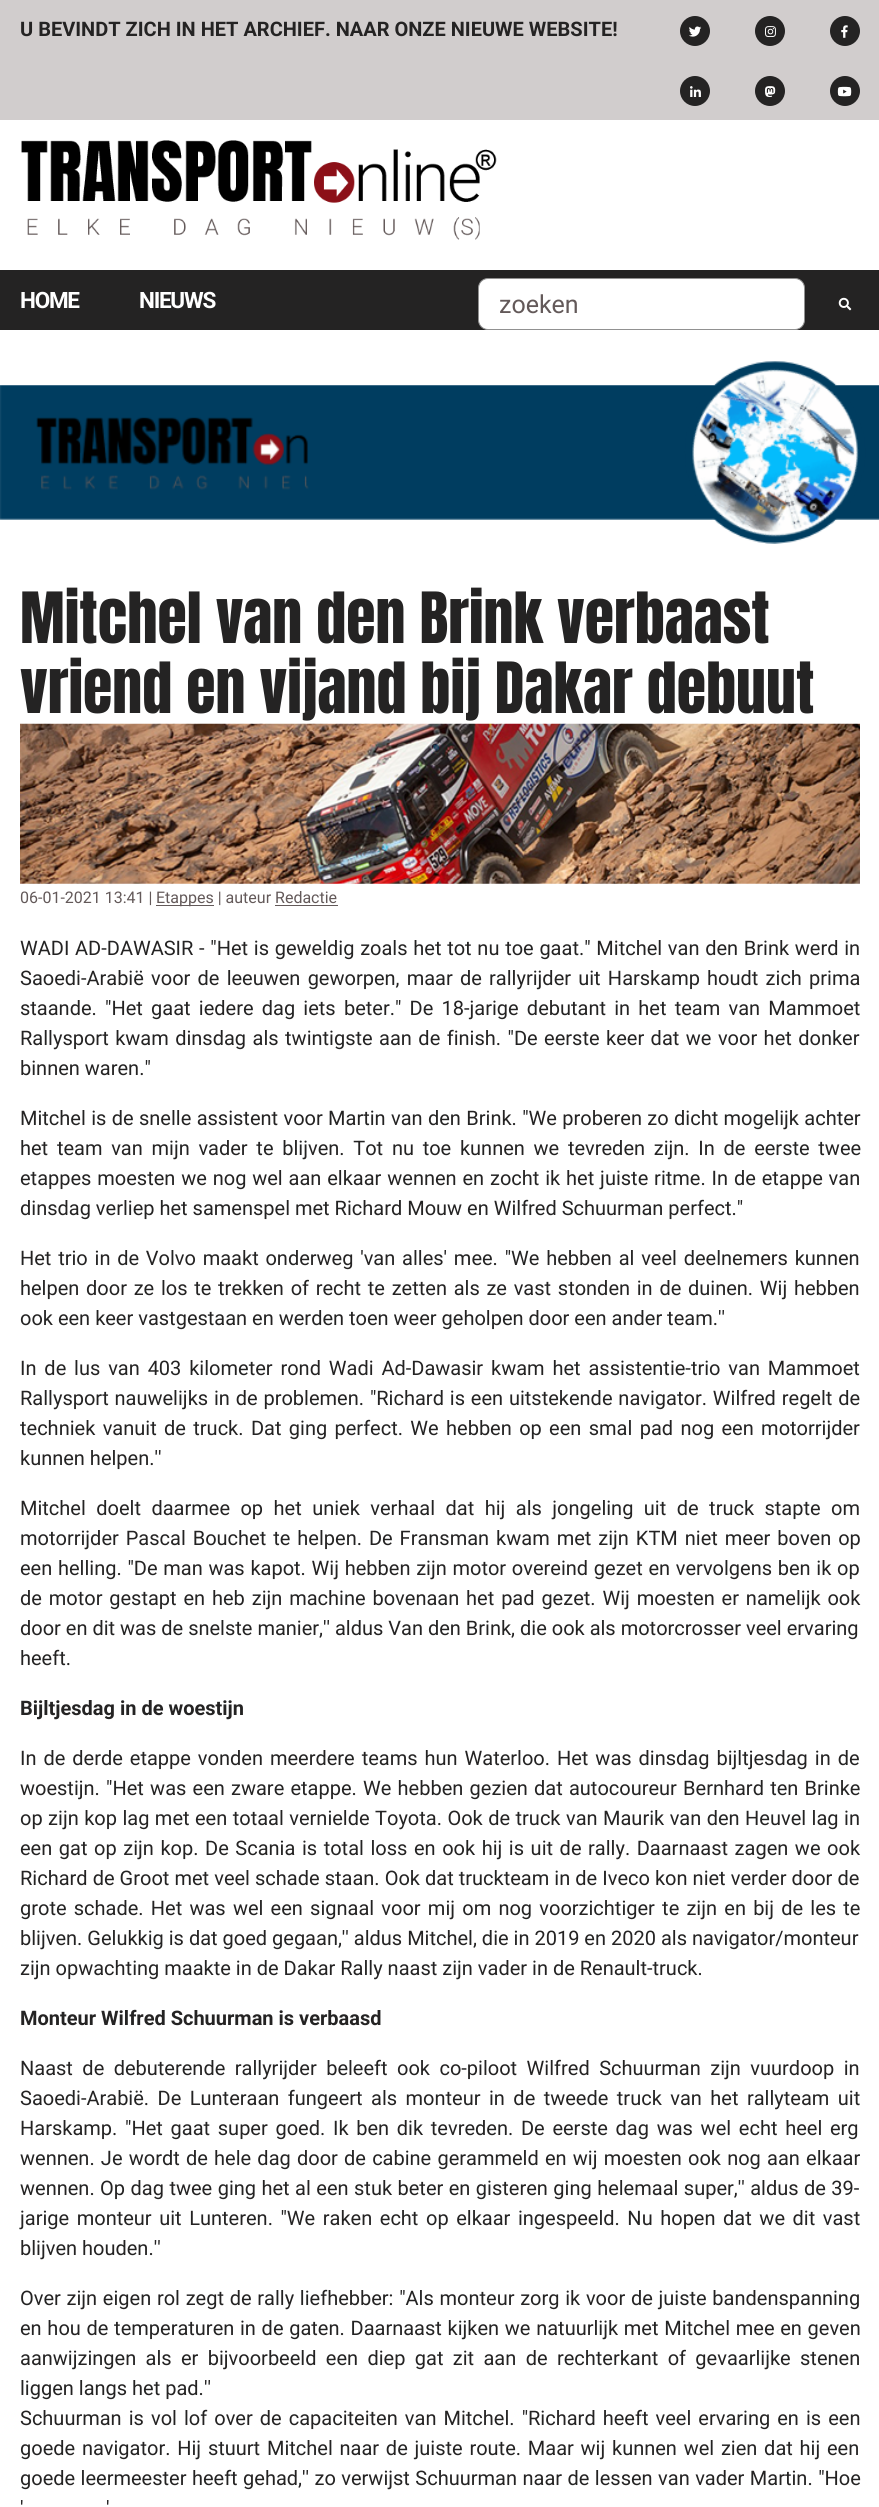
import math
import cairo

surface = cairo.ImageSurface(cairo.FORMAT_RGB24, 879, 2507)
c = cairo.Context(surface)
options = cairo.FontOptions()
options.set_hint_metrics(cairo.HINT_METRICS_OFF)
options.set_hint_style(cairo.HINT_STYLE_NONE)
c.set_font_options(options)
c.set_miter_limit(4)
def C(code):
 c.set_source_rgb(*(v / 255 for v in bytes.fromhex(code[-6:])))
def F(family, size, italic, bold):
 c.select_font_face(family, cairo.FONT_SLANT_ITALIC if italic else cairo.FONT_SLANT_NORMAL, cairo.FONT_WEIGHT_BOLD if bold else cairo.FONT_WEIGHT_NORMAL)
 c.set_font_size(size)
def T(x, y, s):
 c.move_to(x, y)
 c.show_text(s)
def L(x, y, s, letter, word):
 c.move_to(x, y)
 for ch in s:
  c.show_text(ch)
  c.rel_move_to(letter + word * (ch == ' '), 0)
def R(x, y, w, h):
 c.rectangle(x, y, w, h)
 c.fill()
def Q(x, y, w, h, r):
 c.new_sub_path()
 for i, (u, v) in enumerate([(x + w - r, y + h - r), (x + r, y + h - r), (x + r, y + r), (x + w - r, y + r)]):
  c.arc(u, v, r, i * math.pi / 2, (i + 1) * math.pi / 2)
 c.close_path()
def I(path, x, y, w, h):
 c.save()
 c.set_source_surface(cairo.ImageSurface.create_from_png(path), x, y)
 c.rectangle(x, y, w, h)
 c.fill()
 c.restore()
C('ffffff')
c.paint()
C('d1cdcd')
R(0,0,879,120)
F('Roboto',20,0,1)
C('242323')
T(20,36,'U BEVINDT ZICH IN HET ARCHIEF. NAAR ONZE NIEUWE WEBSITE!')
c.new_path()
c.arc(695,31,15,0,2 * math.pi)
c.fill()
I('1.png',689,26,13,11)
c.arc(770,31,15,0,2 * math.pi)
c.fill()
I('2.png',765,26,11,11)
c.arc(845,31,15,0,2 * math.pi)
c.fill()
I('3.png',841,25,7,13)
c.arc(695,91,15,0,2 * math.pi)
c.fill()
I('4.png',690,86,11,11)
c.arc(770,91,15,0,2 * math.pi)
c.fill()
I('5.png',765,86,11,11)
c.arc(845,91,15,0,2 * math.pi)
c.fill()
I('6.png',837,86,15,11)
R(0,270,879,60)
F('Roboto',22.5,0,1)
C('ffffff')
L(20,308,'HOME',-1.25,0)
L(139,308,'NIEUWS',-1.25,0)
I('7.png',21,140,476,100)
Q(478.5,278.5,326,51,9.5)
c.fill_preserve()
C('919191')
c.set_line_width(1)
c.stroke()
F('Roboto',25,0,0)
C('635959')
T(499,313,'zoeken')
I('8.png',838,297,14,14)
I('9.png',0,361,879,183)
F('Anton',60,0,0)
C('242323')
T(20,643,'Mitchel van den Brink verbaast')
T(20,713,'vriend en vijand bij Dakar debuut')
I('10.png',20,723,840,161)
F('Roboto',16,0,0)
C('635959')
T(20,903,'06-01-2021 13:41 |')
R(156,905,58,1)
T(156,903,'Etappes | auteur Redactie')
R(275,905,63,1)
F('Roboto',20,0,0)
C('242323')
L(20,955,'WADI AD-DAWASIR - "Het is geweldig zoals het tot nu toe gaat." Mitchel van den Brink werd in',0,.75)
L(20,985,'Saoedi-Arabië voor de leeuwen geworpen, maar de rallyrijder uit Harskamp houdt zich prima',0,2.25)
L(20,1015,'staande. "Het gaat iedere dag iets beter." De 18-jarige debutant in het team van Mammoet',0,3.25)
L(20,1045,'Rallysport kwam dinsdag als twintigste aan de finish. "De eerste keer dat we voor het donker',0,1.5)
T(20,1075,'binnen waren."')
L(20,1125,'Mitchel is de snelle assistent voor Martin van den Brink. "We proberen zo dicht mogelijk achter',0,.4)
L(20,1155,'het team van mijn vader te blijven. Tot nu toe kunnen we tevreden zijn. In de eerste twee',0,3.75)
L(20,1185,'etappes moesten we nog wel aan elkaar wennen en zocht ik het juiste ritme. In de etappe van',0,.9)
T(20,1215,'dinsdag verliep het samenspel met Richard Mouw en Wilfred Schuurman perfect."')
L(20,1265,'Het trio in de Volvo maakt onderweg \'van alles\' mee. "We hebben al veel deelnemers kunnen',0,1.8)
L(20,1295,'helpen door ze los te trekken of recht te zetten als ze vast stonden in de duinen. Wij hebben',0,1.75)
T(20,1325,'ook een keer vastgestaan en werden toen weer geholpen door een ander team.\'\'')
L(20,1375,'In de lus van 403 kilometer rond Wadi Ad-Dawasir kwam het assistentie-trio van Mammoet',0,2.9)
L(20,1405,'Rallysport nauwelijks in de problemen. "Richard is een uitstekende navigator. Wilfred regelt de',0,.9)
L(20,1435,'techniek vanuit de truck. Dat ging perfect. We hebben op een smal pad nog een motorrijder',0,2.4)
T(20,1465,'kunnen helpen.\'\'')
L(20,1515,'Mitchel doelt daarmee op het uniek verhaal dat hij als jongeling uit de truck stapte om',0,5.5)
L(20,1545,'motorrijder Pascal Bouchet te helpen. De Fransman kwam met zijn KTM niet meer boven op',0,2)
L(20,1575,'een helling. "De man was kapot. Wij hebben zijn motor overeind gezet en vervolgens ben ik op',0,.75)
L(20,1605,'de motor gestapt en heb zijn machine bovenaan het pad gezet. Wij moesten er namelijk ook',0,1.9)
T(20,1635,'door en dit was de snelste manier,\'\' aldus Van den Brink, die ook als motorcrosser veel ervaring')
T(20,1665,'heeft.')
F('Roboto',20,0,1)
T(20,1715,'Bijltjesdag in de woestijn')
F('Roboto',20,0,0)
L(20,1765,'In de derde etappe vonden meerdere teams hun Waterloo. Het was dinsdag bijltjesdag in de',0,2)
L(20,1795,'woestijn. "Het was een zware etappe. We hebben gezien dat autocoureur Bernhard ten Brinke',0,1.25)
L(20,1825,'op zijn kop lag met een totaal vernielde Toyota. Ook de truck van Maurik van den Heuvel lag in',0,.5)
L(20,1855,'een gat op zijn kop. De Scania is total loss en ook hij is uit de rally. Daarnaast zagen we ook',0,1.6)
L(20,1885,'Richard de Groot met veel schade staan. Ook dat truckteam in de Iveco kon niet verder door de',0,.1)
L(20,1915,'grote schade. Het was wel een signaal voor mij om nog voorzichtiger te zijn en bij de les te',0,2.25)
T(20,1945,'blijven. Gelukkig is dat goed gegaan,\'\' aldus Mitchel, die in 2019 en 2020 als navigator/monteur')
T(20,1975,'zijn opwachting maakte in de Dakar Rally naast zijn vader in de Renault-truck.')
F('Roboto',20,0,1)
T(20,2025,'Monteur Wilfred Schuurman is verbaasd')
F('Roboto',20,0,0)
L(20,2075,'Naast de debuterende rallyrijder beleeft ook co-piloot Wilfred Schuurman zijn vuurdoop in',0,4.5)
L(20,2105,'Saoedi-Arabië. De Lunteraan fungeert als monteur in de tweede truck van het rallyteam uit',0,3.5)
L(20,2135,'Harskamp. "Het gaat super goed. Ik ben dik tevreden. De eerste dag was wel echt heel erg',0,2.75)
L(20,2165,'wennen. Je wordt de hele dag door de cabine gerammeld en wij moesten ook nog aan elkaar',0,1.25)
L(20,2195,'wennen. Op dag twee ging het al een stuk beter en gisteren ging helemaal super,\'\' aldus de 39-',0,.5)
L(20,2225,'jarige monteur uit Lunteren. "We raken echt op elkaar ingespeeld. Nu hopen dat we dit vast',0,2.6)
T(20,2255,'blijven houden.\'\'')
L(20,2305,'Over zijn eigen rol zegt de rally liefhebber: "Als monteur zorg ik voor de juiste bandenspanning',0,.75)
L(20,2335,'en hou de temperaturen in de gaten. Daarnaast kijken we natuurlijk met Mitchel mee en geven',0,.75)
L(20,2365,'aanwijzingen als er bijvoorbeeld een diep gat zit aan de rechterkant of gevaarlijke stenen',0,4.4)
T(20,2395,'liggen langs het pad.\'\'')
L(20,2425,'Schuurman is vol lof over de capaciteiten van Mitchel. "Richard heeft veel ervaring en is een',0,2.1)
L(20,2455,'goede navigator. Hij stuurt Mitchel naar de juiste route. Maar wij kunnen wel zien dat hij een',0,1.8)
L(20,2485,'goede leermeester heeft gehad,\'\' zo verwijst Schuurman naar de lessen van vader Martin. "Hoe',0,.5)
L(20,2515,'\'',0,1)
L(106,2515,'\'',0,1)
surface.write_to_png('o.png')
